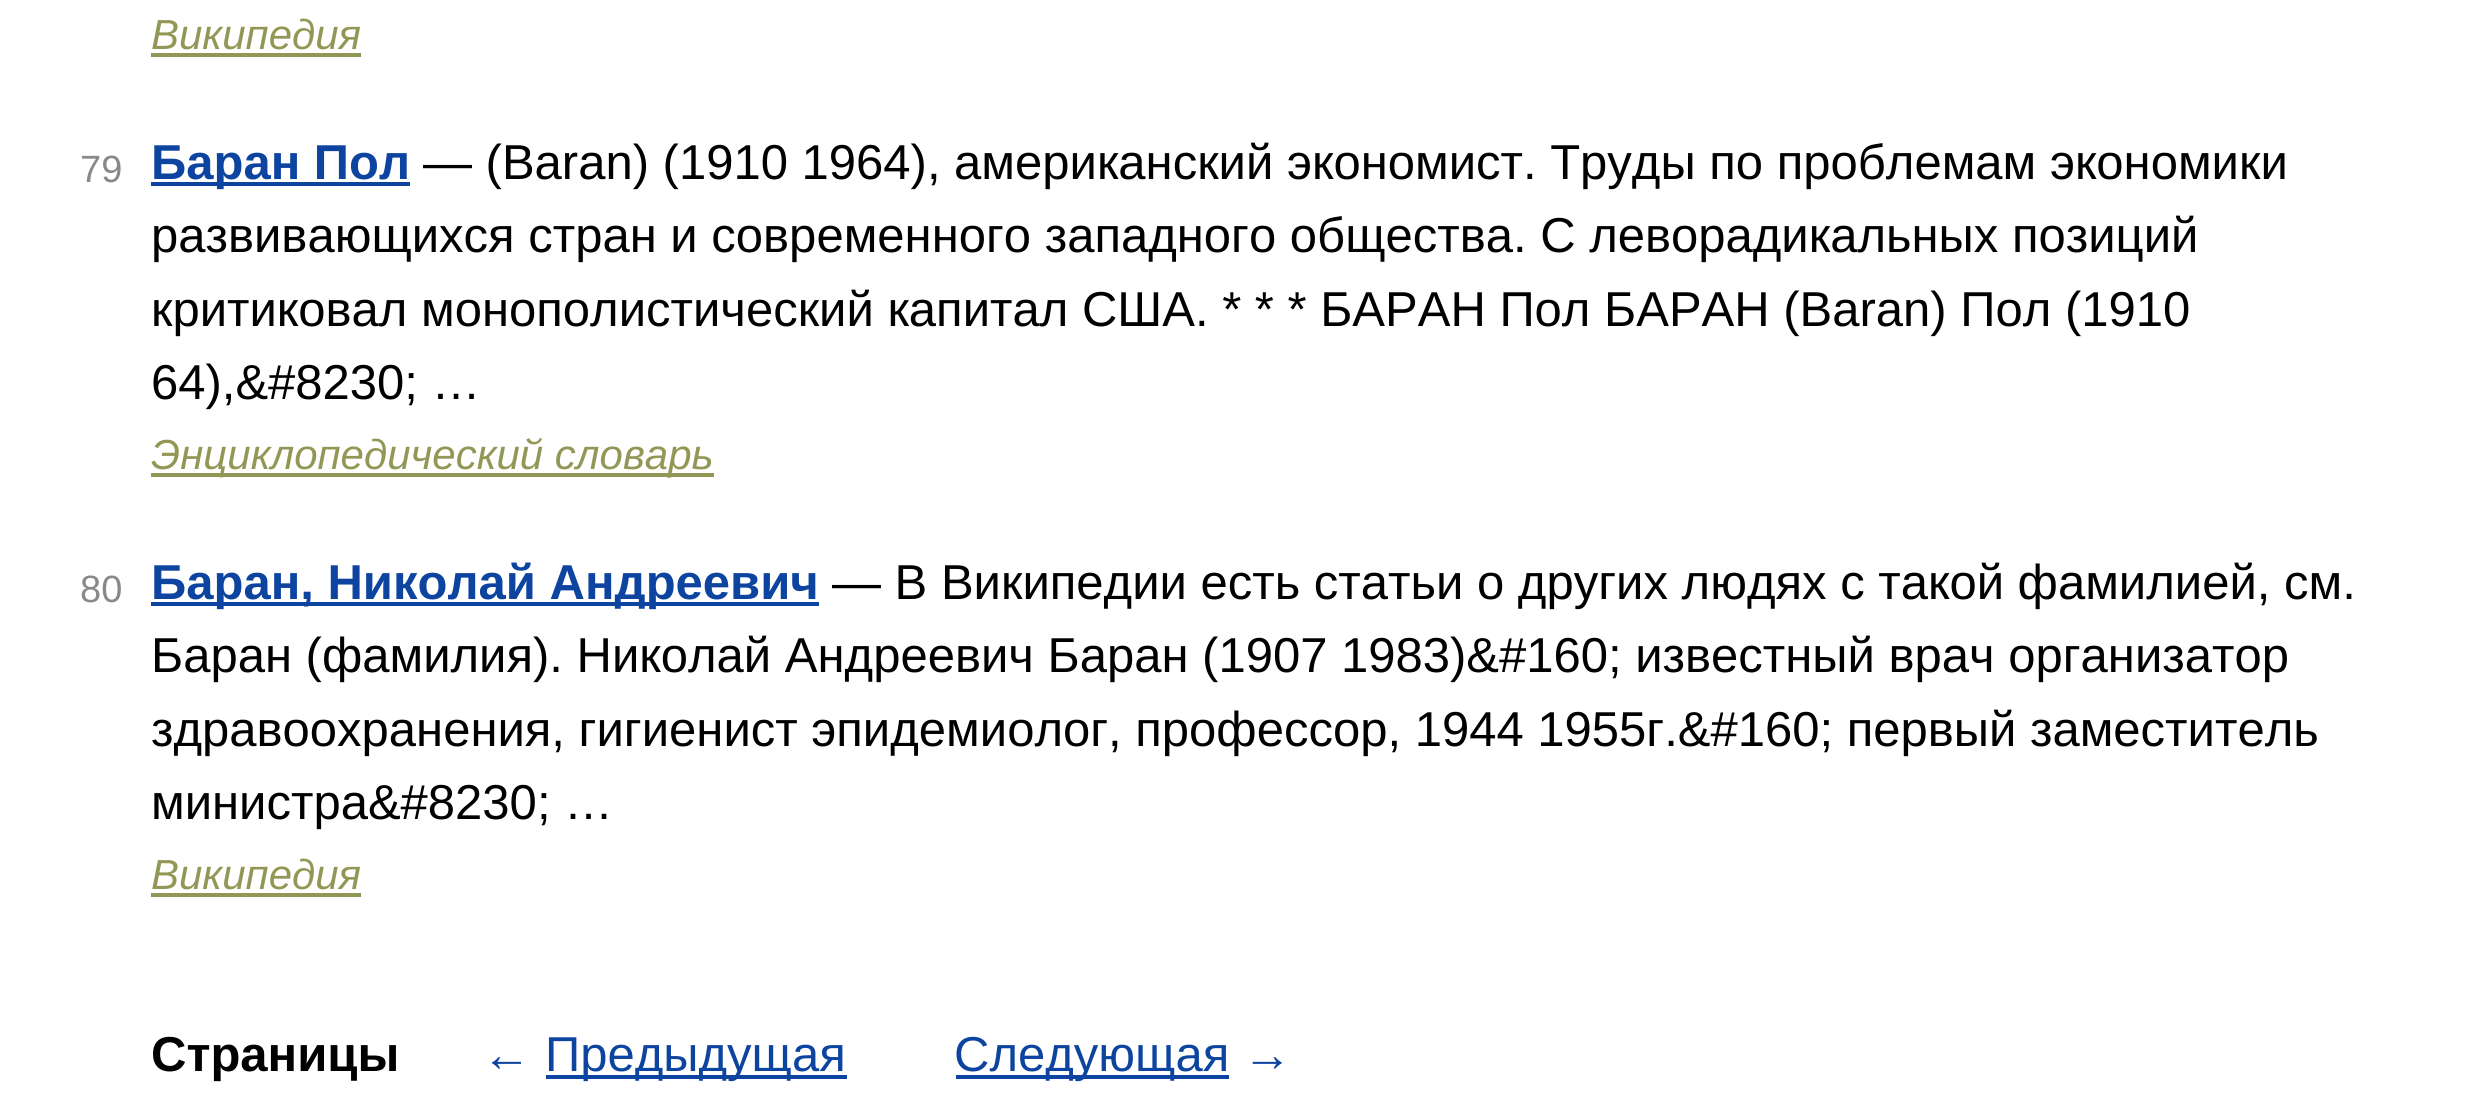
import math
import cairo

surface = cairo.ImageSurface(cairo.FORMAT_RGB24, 2472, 1119)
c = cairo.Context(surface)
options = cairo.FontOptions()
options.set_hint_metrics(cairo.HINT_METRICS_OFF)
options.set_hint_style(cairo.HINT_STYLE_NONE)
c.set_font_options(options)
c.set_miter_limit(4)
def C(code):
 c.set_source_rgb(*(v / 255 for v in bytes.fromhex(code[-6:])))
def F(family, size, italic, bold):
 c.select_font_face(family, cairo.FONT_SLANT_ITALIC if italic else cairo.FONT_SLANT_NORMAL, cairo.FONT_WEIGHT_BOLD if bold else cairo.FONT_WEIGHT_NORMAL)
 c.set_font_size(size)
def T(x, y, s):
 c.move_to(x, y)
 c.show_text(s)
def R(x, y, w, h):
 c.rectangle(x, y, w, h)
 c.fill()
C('ffffff')
c.paint()
F('Liberation Sans',42,1,0)
C('939756')
T(151,49,'Википедия')
R(151,53,210,4)
F('Liberation Sans',38,0,0)
C('898989')
T(80,182,'79')
C('0d44a0')
R(151,182,259,4)
F('Liberation Sans',49,0,1)
T(151,179,'Баран Пол')
F('Liberation Sans',49,0,0)
C('000000')
T(423,179,'— (Baran) (1910 1964), американский экономист. Труды по проблемам экономики')
T(151,252,'развивающихся стран и современного западного общества. С леворадикальных позиций')
T(151,326,'критиковал монополистический капитал США. * * * БАРАН Пол БАРАН (Baran) Пол (1910')
T(151,399,'64),&#8230; …')
C('939756')
R(151,473,563,4)
F('Liberation Sans',42,1,0)
T(151,469,'Энциклопедический словарь')
F('Liberation Sans',38,0,0)
C('898989')
T(80,602,'80')
C('0d44a0')
R(151,602,668,4)
F('Liberation Sans',49,0,1)
T(151,599,'Баран, Николай Андреевич')
F('Liberation Sans',49,0,0)
C('000000')
T(832,599,'— В Википедии есть статьи о других людях с такой фамилией, см.')
T(151,672,'Баран (фамилия). Николай Андреевич Баран (1907 1983)&#160; известный врач организатор')
T(151,746,'здравоохранения, гигиенист эпидемиолог, профессор, 1944 1955г.&#160; первый заместитель')
T(151,819,'министра&#8230; …')
F('Liberation Sans',42,1,0)
C('939756')
T(151,889,'Википедия')
R(151,893,210,4)
F('Liberation Sans',49,0,1)
C('000000')
T(151,1071,'Страницы')
F('Liberation Sans',49,0,0)
C('0d44a0')
T(482,1071,'←')
R(546,1075,301,4)
T(545,1071,'Предыдущая')
R(956,1075,273,4)
T(954,1071,'Следующая →')
surface.write_to_png('o.png')
